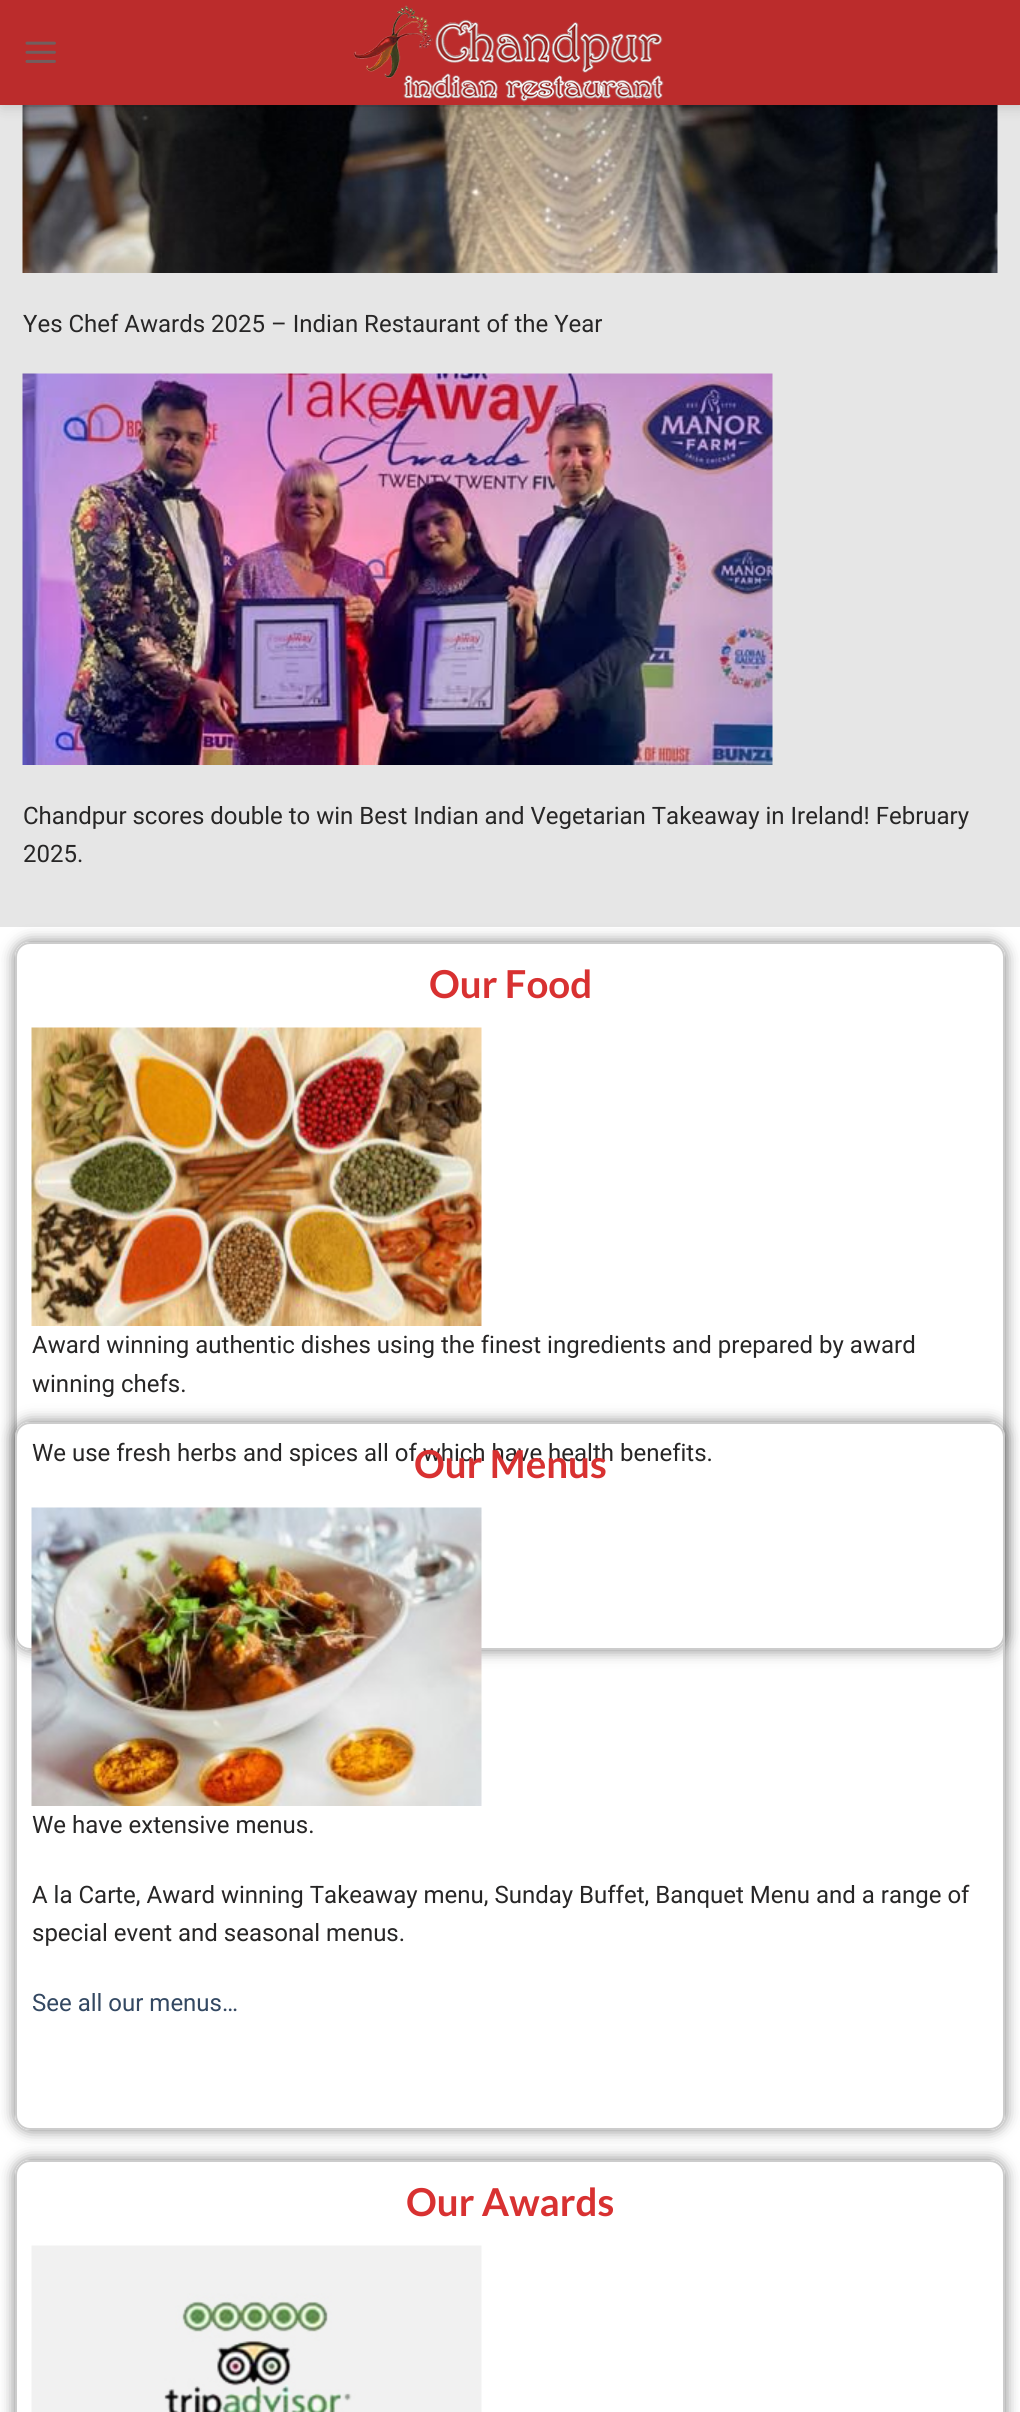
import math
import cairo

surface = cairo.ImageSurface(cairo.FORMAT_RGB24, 1020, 2412)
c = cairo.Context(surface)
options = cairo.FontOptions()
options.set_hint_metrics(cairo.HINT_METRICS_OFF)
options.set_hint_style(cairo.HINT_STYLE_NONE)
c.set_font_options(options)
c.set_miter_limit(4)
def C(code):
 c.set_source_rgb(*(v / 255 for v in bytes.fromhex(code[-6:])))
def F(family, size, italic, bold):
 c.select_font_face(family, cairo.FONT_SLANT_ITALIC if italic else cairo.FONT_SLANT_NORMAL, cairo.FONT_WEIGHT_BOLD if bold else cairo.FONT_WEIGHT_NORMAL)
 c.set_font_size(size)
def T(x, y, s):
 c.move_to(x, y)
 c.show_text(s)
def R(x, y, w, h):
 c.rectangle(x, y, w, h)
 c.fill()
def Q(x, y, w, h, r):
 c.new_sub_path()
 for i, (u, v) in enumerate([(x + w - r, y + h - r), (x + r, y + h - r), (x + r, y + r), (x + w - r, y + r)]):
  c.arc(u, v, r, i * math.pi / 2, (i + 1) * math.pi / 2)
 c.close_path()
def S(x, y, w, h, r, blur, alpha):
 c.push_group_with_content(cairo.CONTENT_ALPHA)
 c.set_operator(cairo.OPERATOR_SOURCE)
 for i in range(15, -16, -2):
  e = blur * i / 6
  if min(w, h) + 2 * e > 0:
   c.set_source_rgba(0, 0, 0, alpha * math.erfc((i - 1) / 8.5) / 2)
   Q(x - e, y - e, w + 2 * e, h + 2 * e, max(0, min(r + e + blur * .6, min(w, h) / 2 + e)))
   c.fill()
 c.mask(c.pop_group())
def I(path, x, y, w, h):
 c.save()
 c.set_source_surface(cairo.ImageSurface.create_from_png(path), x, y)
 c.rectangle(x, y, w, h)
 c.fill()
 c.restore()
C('ffffff')
c.paint()
C('e6e6e6')
R(0,105,1020,822)
I('3.png',22,105,976,168)
C('000000')
S(2,2,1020,105,0,7.5,.15)
C('bb2c2c')
R(0,0,1020,105)
I('1.png',25,41,31,22)
I('2.png',353,5,311,97)
c.set_source_rgba(0,0,0,0.1)
R(23,105,975,2)
F('Roboto',24,0,0)
C('272626')
T(23,332,'Yes Chef Awards 2025 – Indian Restaurant of the Year')
I('4.png',22,373,751,392)
T(23,824,'Chandpur scores double to win Best Indian and Vegetarian Takeaway in Ireland! February')
T(23,862,'2025.')
c.save()
c.set_fill_rule(cairo.FILL_RULE_EVEN_ODD)
c.new_path()
c.move_to(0,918)
c.line_to(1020,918)
c.line_to(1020,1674)
c.line_to(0,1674)
c.close_path()
c.move_to(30,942)
c.line_to(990,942)
c.curve_to(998.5,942,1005,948.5,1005,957)
c.line_to(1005,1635)
c.curve_to(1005,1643.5,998.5,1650,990,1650)
c.line_to(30,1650)
c.curve_to(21.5,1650,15,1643.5,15,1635)
c.line_to(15,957)
c.curve_to(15,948.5,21.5,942,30,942)
c.close_path()
c.clip()
C('000000')
S(15,942,990,708,15,7.5,.5)
c.restore()
Q(16,943,988,706,14)
C('cccccc')
c.stroke()
F('Lato',38.5,0,1)
C('d83131')
T(429,998,'Our Food')
I('5.png',31,1027,451,299)
F('Roboto',24,0,0)
C('272626')
T(32,1353,'Award winning authentic dishes using the finest ingredients and prepared by award')
T(32,1392,'winning chefs.')
T(32,1461,'We use fresh herbs and spices all of which have health benefits.')
c.save()
c.set_fill_rule(cairo.FILL_RULE_EVEN_ODD)
c.new_path()
c.move_to(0,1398)
c.line_to(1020,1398)
c.line_to(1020,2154)
c.line_to(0,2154)
c.close_path()
c.move_to(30,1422)
c.line_to(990,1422)
c.curve_to(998.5,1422,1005,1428.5,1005,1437)
c.line_to(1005,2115)
c.curve_to(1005,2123.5,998.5,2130,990,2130)
c.line_to(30,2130)
c.curve_to(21.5,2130,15,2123.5,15,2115)
c.line_to(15,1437)
c.curve_to(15,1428.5,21.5,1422,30,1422)
c.close_path()
c.clip()
C('000000')
S(15,1422,990,708,15,7.5,.5)
c.restore()
Q(16,1423,988,706,14)
C('cccccc')
c.stroke()
F('Lato',38.5,0,1)
C('d83131')
T(414,1478,'Our Menus')
I('6.png',31,1507,451,299)
F('Roboto',24,0,0)
C('272626')
T(32,1833,'We have extensive menus.')
T(32,1903,'A la Carte, Award winning Takeaway menu, Sunday Buffet, Banquet Menu and a range of')
T(32,1941,'special event and seasonal menus.')
C('334862')
T(32,2011,'See all our menus…')
c.save()
c.set_fill_rule(cairo.FILL_RULE_EVEN_ODD)
c.new_path()
c.move_to(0,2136)
c.line_to(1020,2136)
c.line_to(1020,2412)
c.line_to(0,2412)
c.close_path()
c.move_to(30,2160)
c.line_to(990,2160)
c.curve_to(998.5,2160,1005,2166.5,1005,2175)
c.line_to(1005,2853)
c.curve_to(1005,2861.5,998.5,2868,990,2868)
c.line_to(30,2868)
c.curve_to(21.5,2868,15,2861.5,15,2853)
c.line_to(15,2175)
c.curve_to(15,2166.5,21.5,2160,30,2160)
c.close_path()
c.clip()
C('000000')
S(15,2160,990,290,15,7.5,.5)
c.restore()
Q(16,2161,988,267,14)
C('cccccc')
c.stroke()
F('Lato',38.5,0,1)
C('d83131')
T(406,2216,'Our Awards')
I('7.png',31,2245,451,167)
surface.write_to_png('o.png')
